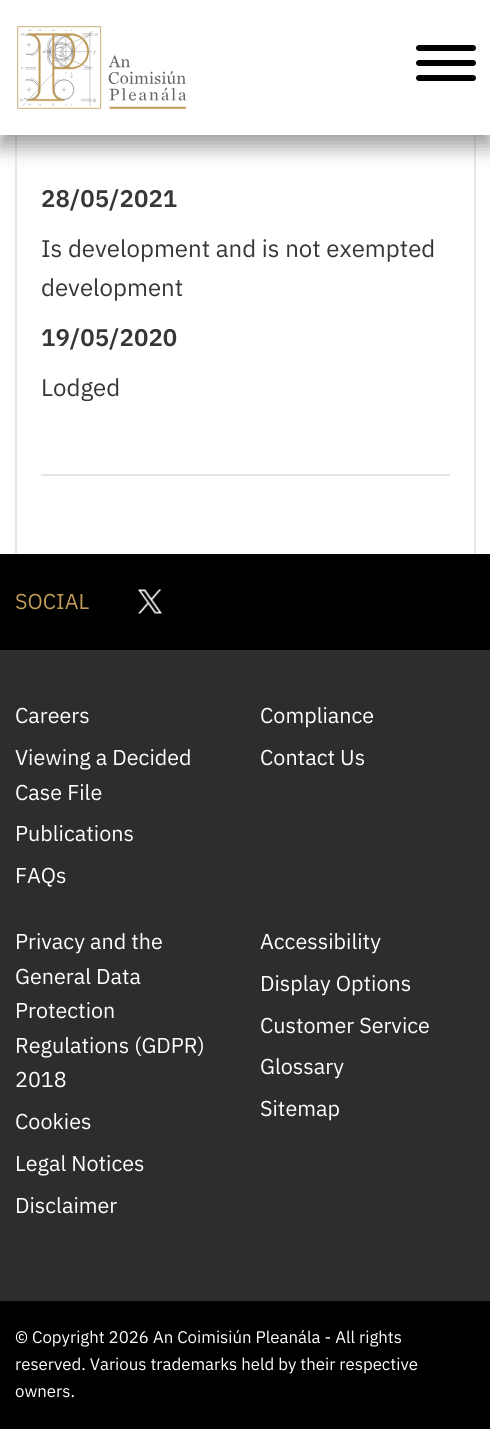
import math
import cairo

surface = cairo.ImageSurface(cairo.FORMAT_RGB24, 490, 1429)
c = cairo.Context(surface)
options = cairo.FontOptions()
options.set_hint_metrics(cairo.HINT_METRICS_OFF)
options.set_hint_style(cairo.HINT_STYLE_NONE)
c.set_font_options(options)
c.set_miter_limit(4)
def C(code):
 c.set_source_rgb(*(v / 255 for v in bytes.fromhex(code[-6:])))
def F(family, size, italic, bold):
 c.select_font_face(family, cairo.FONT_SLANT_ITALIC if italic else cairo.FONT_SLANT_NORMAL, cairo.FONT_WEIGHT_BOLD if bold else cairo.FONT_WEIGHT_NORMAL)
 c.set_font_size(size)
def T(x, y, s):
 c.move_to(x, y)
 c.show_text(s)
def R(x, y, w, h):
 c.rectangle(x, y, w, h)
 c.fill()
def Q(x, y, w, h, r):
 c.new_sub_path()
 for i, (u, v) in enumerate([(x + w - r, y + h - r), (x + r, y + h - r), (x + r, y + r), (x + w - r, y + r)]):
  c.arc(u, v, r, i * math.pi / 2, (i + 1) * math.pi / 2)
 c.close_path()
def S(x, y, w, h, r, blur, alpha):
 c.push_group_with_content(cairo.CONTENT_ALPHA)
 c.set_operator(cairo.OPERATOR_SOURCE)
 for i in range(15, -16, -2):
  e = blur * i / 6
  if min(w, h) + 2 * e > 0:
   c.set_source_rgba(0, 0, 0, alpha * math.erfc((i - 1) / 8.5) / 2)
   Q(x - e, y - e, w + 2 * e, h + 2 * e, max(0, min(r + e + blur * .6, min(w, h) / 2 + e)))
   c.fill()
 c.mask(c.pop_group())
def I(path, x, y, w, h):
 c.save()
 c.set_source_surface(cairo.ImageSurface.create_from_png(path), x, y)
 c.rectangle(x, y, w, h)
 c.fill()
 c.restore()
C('ffffff')
c.paint()
C('e9e9e9')
R(474,135,2,419)
R(15,135,2,419)
C('323232')
S(0,11,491,135,0,10.5,.5)
C('ffffff')
R(0,0,490,135)
I('1.png',17,26,170,83)
C('000000')
Q(416,45,60,6,3)
c.fill()
Q(416,60,60,6,3)
c.fill()
Q(416,75,60,6,3)
c.fill()
F('IBM Plex Sans SemiBold',24,0,0)
C('363636')
T(41,207,'28/05/2021')
F('IBM Plex Sans',24,0,0)
T(41,257,'Is development and is not exempted')
T(41,296,'development')
F('IBM Plex Sans SemiBold',24,0,0)
T(41,346,'19/05/2020')
F('IBM Plex Sans',24,0,0)
T(41,396,'Lodged')
C('e4e4e4')
R(41,474,409,2)
C('000000')
R(0,554,490,96)
F('IBM Plex Sans',21.5,0,0)
C('c09b57')
T(15,609,'SOCIAL')
I('2.png',138,589,24,25)
C('2d2d2d')
R(0,650,490,651)
C('ffffff')
T(15,723,'Careers')
T(15,765,'Viewing a Decided')
T(15,800,'Case File')
T(15,841,'Publications')
T(15,883,'FAQs')
T(260,723,'Compliance')
T(260,765,'Contact Us')
T(15,949,'Privacy and the')
T(15,984,'General Data')
T(15,1018,'Protection')
T(15,1053,'Regulations (GDPR)')
T(15,1087,'2018')
T(15,1129,'Cookies')
T(15,1171,'Legal Notices')
T(15,1213,'Disclaimer')
T(260,949,'Accessibility')
T(260,991,'Display Options')
T(260,1033,'Customer Service')
T(260,1074,'Glossary')
T(260,1116,'Sitemap')
C('000000')
R(0,1301,490,128)
F('IBM Plex Sans',16.8,0,0)
C('ffffff')
T(15,1343,'© Copyright 2026 An Coimisiún Pleanála - All rights')
T(15,1370,'reserved. Various trademarks held by their respective')
T(15,1397,'owners.')
surface.write_to_png('o.png')
